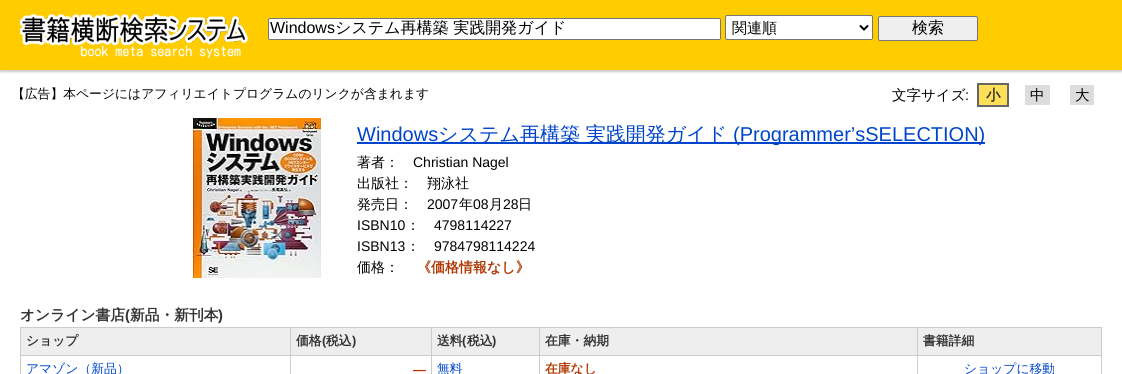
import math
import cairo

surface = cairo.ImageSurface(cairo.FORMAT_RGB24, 1122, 374)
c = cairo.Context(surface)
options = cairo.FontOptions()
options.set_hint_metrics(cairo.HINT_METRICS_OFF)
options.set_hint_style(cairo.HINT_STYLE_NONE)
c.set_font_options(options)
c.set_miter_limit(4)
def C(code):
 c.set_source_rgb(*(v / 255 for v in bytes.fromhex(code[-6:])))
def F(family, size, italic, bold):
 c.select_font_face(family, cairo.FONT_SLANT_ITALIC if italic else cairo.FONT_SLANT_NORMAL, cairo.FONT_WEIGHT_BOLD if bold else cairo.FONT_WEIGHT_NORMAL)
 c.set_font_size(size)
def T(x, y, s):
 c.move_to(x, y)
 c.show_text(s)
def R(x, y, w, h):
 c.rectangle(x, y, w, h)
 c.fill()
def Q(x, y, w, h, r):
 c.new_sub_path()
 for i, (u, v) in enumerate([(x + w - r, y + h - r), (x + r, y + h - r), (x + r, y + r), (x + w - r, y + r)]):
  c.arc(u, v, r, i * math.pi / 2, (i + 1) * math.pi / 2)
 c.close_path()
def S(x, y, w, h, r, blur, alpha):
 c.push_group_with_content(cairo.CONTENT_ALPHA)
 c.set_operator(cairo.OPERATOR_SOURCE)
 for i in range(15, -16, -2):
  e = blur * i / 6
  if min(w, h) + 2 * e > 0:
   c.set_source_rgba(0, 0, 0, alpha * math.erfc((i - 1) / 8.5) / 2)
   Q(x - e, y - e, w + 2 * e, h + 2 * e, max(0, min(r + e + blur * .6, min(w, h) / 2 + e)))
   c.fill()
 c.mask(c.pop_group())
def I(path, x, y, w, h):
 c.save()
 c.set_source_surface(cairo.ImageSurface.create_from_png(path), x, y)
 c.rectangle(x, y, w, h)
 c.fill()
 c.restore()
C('ffffff')
c.paint()
C('cccccc')
S(0,1,1122,71,0,1,1)
C('ffcc00')
R(0,0,1122,70)
C('cccccc')
R(0,70,1122,1)
I('1.png',20,14,228,45)
C('ffffff')
Q(268.5,18.5,452,21,1.5)
c.fill_preserve()
C('767676')
c.set_line_width(1)
c.stroke()
F('Liberation Sans',16,0,0)
C('000000')
T(270,33,'Windows')
c.save()
c.rectangle(270,20,449,18)
c.clip()
F('WenQuanYi Zen Hei Medium',16,0,0)
T(335,33,'システム再構築 実践開発ガイド')
c.restore()
C('ffffff')
Q(725.5,15.5,147,24,1.5)
c.fill_preserve()
C('767676')
c.stroke()
c.new_path()
c.move_to(860,25.5)
c.line_to(864,29.5)
c.line_to(868,25.5)
C('000000')
c.set_line_width(2)
c.stroke()
F('WenQuanYi Zen Hei Medium',15,0,0)
T(732,33,'関連順')
C('efefef')
Q(878.5,16.5,99,24,1.5)
c.fill_preserve()
C('767676')
c.set_line_width(1)
c.stroke()
F('WenQuanYi Zen Hei Medium',16,0,0)
C('000000')
T(912,33,'検索')
F('WenQuanYi Zen Hei Medium',12.8,0,0)
T(12,98,'【広告】本ページにはアフィリエイトプログラムのリンクが含まれます')
F('WenQuanYi Zen Hei Medium',14.5,0,0)
T(892,100,'文字サイズ')
F('Liberation Sans',14.5,0,0)
T(965,100,':')
C('ffdf55')
c.rectangle(978,84,30,22)
c.fill_preserve()
C('666666')
c.set_line_width(2)
c.stroke()
F('WenQuanYi Zen Hei',14.5,0,1)
C('333333')
T(986,100,'小')
C('dddddd')
R(1025,85,25,20)
F('WenQuanYi Zen Hei Medium',14.5,0,0)
C('000000')
T(1030,100,'中')
C('dddddd')
R(1070,85,24,20)
C('000000')
T(1075,100,'大')
I('2.png',193,118,128,160)
F('Liberation Sans',20,0,0)
C('0044cc')
T(357,141,'Windows')
R(357,142,628,2)
F('WenQuanYi Zen Hei Medium',20,0,0)
T(438,141,'システム再構築 実践開発ガイド')
F('Liberation Sans',20,0,0)
T(733,141,'(Programmer’sSELECTION)')
F('WenQuanYi Zen Hei Medium',14,0,0)
C('000000')
T(357,167,'著者：')
F('Liberation Sans',14,0,0)
T(413,167,'Christian Nagel')
F('WenQuanYi Zen Hei Medium',14,0,0)
T(357,188,'出版社：　翔泳社')
T(357,209,'発売日：')
F('Liberation Sans',14,0,0)
T(427,209,'2007')
F('WenQuanYi Zen Hei Medium',14,0,0)
T(459,209,'年')
F('Liberation Sans',14,0,0)
T(473,209,'08')
F('WenQuanYi Zen Hei Medium',14,0,0)
T(489,209,'月')
F('Liberation Sans',14,0,0)
T(503,209,'28')
F('WenQuanYi Zen Hei Medium',14,0,0)
T(518,209,'日')
F('Liberation Sans',14,0,0)
T(357,230,'ISBN10')
F('WenQuanYi Zen Hei Medium',14,0,0)
T(406,230,'：')
F('Liberation Sans',14,0,0)
T(434,230,'4798114227')
T(357,251,'ISBN13')
F('WenQuanYi Zen Hei Medium',14,0,0)
T(406,251,'：')
F('Liberation Sans',14,0,0)
T(434,251,'9784798114224')
F('WenQuanYi Zen Hei Medium',14,0,0)
T(357,272,'価格：')
F('WenQuanYi Zen Hei',14,0,1)
C('b03804')
T(417,272,'《価格情報なし》')
F('WenQuanYi Zen Hei',14.75,0,1)
C('333333')
T(20,320,'オンライン書店')
F('Liberation Sans',14.75,0,1)
T(125,320,'(')
F('WenQuanYi Zen Hei',14.75,0,1)
T(130,320,'新品・新刊本')
F('Liberation Sans',14.75,0,1)
T(218,320,')')
C('cccccc')
R(20,327,1082,1)
R(20,327,1,47)
C('eeeeee')
R(21,328,1080,27)
C('cccccc')
R(290,328,1,46)
R(21,355,270,1)
F('WenQuanYi Zen Hei',12.8,0,1)
C('333333')
T(26,345,'ショップ')
C('cccccc')
R(431,328,1,46)
R(291,355,141,1)
C('333333')
T(296,345,'価格')
F('Liberation Sans',12.8,0,1)
T(322,345,'(')
F('WenQuanYi Zen Hei',12.8,0,1)
T(326,345,'税込')
F('Liberation Sans',12.8,0,1)
T(352,345,')')
C('cccccc')
R(539,328,1,46)
R(432,355,108,1)
F('WenQuanYi Zen Hei',12.8,0,1)
C('333333')
T(437,345,'送料')
F('Liberation Sans',12.8,0,1)
T(462,345,'(')
F('WenQuanYi Zen Hei',12.8,0,1)
T(467,345,'税込')
F('Liberation Sans',12.8,0,1)
T(492,345,')')
C('cccccc')
R(917,328,1,46)
R(540,355,378,1)
F('WenQuanYi Zen Hei',12.8,0,1)
C('333333')
T(545,345,'在庫・納期')
C('cccccc')
R(1101,328,1,46)
R(918,355,184,1)
C('333333')
T(923,345,'書籍詳細')
F('WenQuanYi Zen Hei Medium',12.8,0,0)
C('0044cc')
T(26,373,'アマゾン（新品）')
F('Liberation Sans',12.8,0,1)
C('b03804')
T(413,374,'―')
F('WenQuanYi Zen Hei Medium',12.8,0,0)
C('0044cc')
T(437,373,'無料')
F('WenQuanYi Zen Hei',12.8,0,1)
C('b03804')
T(545,373,'在庫なし')
F('WenQuanYi Zen Hei Medium',12.8,0,0)
C('0044cc')
T(964,373,'ショップに移動')
surface.write_to_png('o.png')
